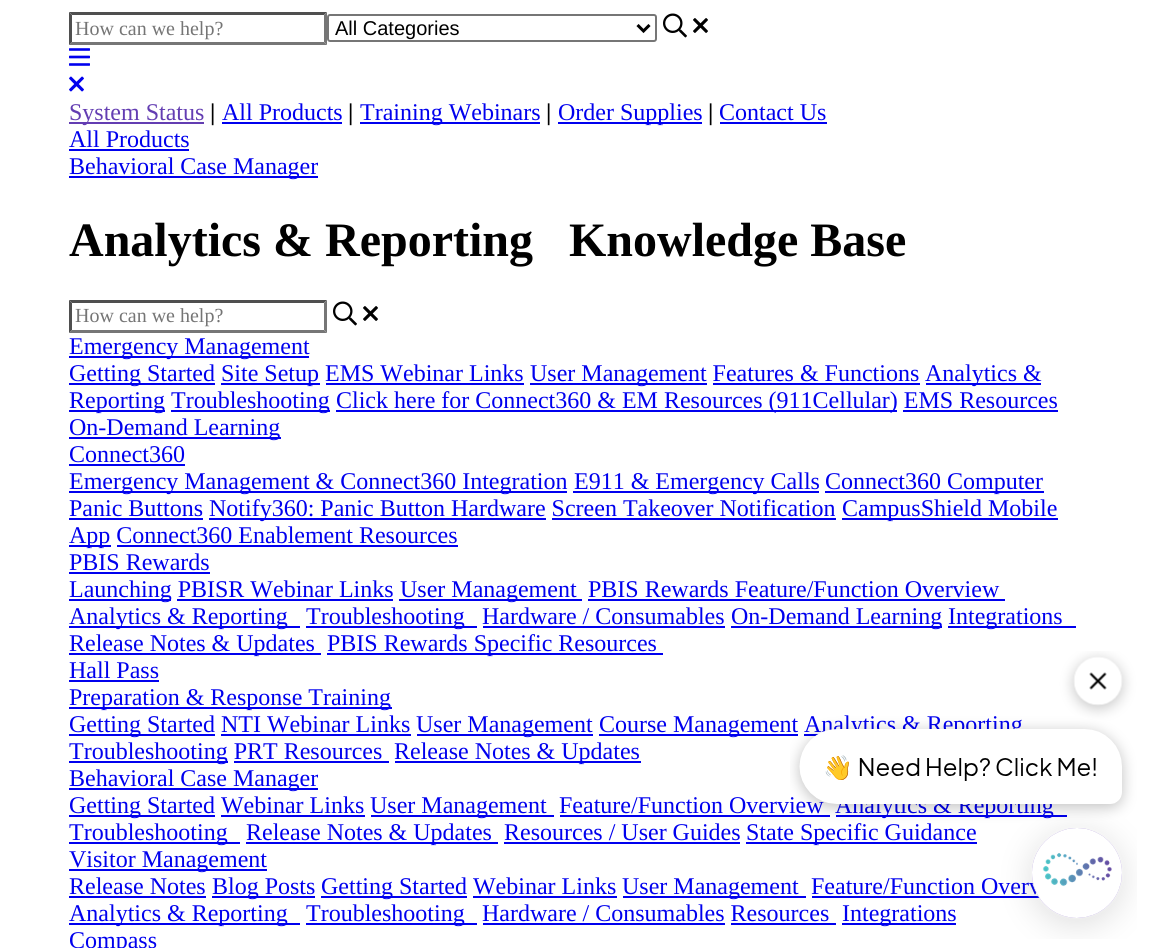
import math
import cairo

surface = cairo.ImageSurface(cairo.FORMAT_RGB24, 1164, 948)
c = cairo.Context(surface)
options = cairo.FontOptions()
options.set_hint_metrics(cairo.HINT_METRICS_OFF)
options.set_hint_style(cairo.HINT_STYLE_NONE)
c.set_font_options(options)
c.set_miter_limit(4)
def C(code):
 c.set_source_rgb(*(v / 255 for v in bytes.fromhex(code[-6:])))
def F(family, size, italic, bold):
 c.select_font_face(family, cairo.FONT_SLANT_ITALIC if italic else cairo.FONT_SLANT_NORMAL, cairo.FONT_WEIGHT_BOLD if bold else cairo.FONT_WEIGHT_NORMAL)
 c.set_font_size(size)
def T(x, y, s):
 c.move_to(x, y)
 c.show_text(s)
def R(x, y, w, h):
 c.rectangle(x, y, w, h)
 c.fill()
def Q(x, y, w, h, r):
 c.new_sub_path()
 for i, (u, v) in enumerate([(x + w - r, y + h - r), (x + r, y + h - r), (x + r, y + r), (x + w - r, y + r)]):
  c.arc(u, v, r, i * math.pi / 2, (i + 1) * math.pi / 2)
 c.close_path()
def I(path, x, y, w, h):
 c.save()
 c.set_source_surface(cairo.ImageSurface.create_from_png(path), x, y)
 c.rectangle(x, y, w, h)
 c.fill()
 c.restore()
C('ffffff')
c.paint()
C('4f4f4f')
c.new_path()
c.move_to(69,12)
c.line_to(327,12)
c.line_to(324,15)
c.line_to(72,15)
c.close_path()
c.fill()
C('767676')
c.new_path()
c.move_to(327,12)
c.line_to(327,45)
c.line_to(324,42)
c.line_to(324,15)
c.close_path()
c.fill()
c.new_path()
c.move_to(327,45)
c.line_to(69,45)
c.line_to(72,42)
c.line_to(324,42)
c.close_path()
c.fill()
C('4f4f4f')
c.new_path()
c.move_to(69,45)
c.line_to(69,12)
c.line_to(72,15)
c.line_to(72,42)
c.close_path()
c.fill()
F('Liberation Serif',20,0,0)
C('757575')
T(75,35,'How can we help?')
Q(328,15,328,26,2)
C('767676')
c.stroke()
c.new_path()
c.move_to(637.5,25)
c.line_to(643.5,31)
c.line_to(649.5,25)
C('000000')
c.set_line_width(3)
c.stroke()
F('Liberation Sans',20,0,0)
T(335,35,'All Categories')
I('1.png',663,13,24,25)
I('2.png',693,18,15,15)
I('3.png',69,48,21,18)
I('4.png',69,76,15,16)
C('633db2')
R(69,122,135,2)
F('Liberation Serif',24,0,0)
T(69,120,'System Status')
F('Liberation Serif',24,0,1)
C('000000')
T(210,120,'|')
F('Liberation Serif',24,0,0)
C('0000ee')
T(222,120,'All Products')
R(222,122,120,2)
F('Liberation Serif',24,0,1)
C('000000')
T(348,120,'|')
C('0000ee')
R(360,122,180,2)
F('Liberation Serif',24,0,0)
T(360,120,'Training Webinars')
F('Liberation Serif',24,0,1)
C('000000')
T(546,120,'|')
C('0000ee')
R(558,122,144,2)
F('Liberation Serif',24,0,0)
T(558,120,'Order Supplies')
F('Liberation Serif',24,0,1)
C('000000')
T(708,120,'|')
F('Liberation Serif',24,0,0)
C('0000ee')
T(719,120,'Contact Us')
R(720,122,107,2)
T(69,147,'All Products')
R(69,149,120,2)
R(69,176,249,2)
T(69,174,'Behavioral Case Manager')
F('Liberation Serif',48,0,1)
C('000000')
T(69,256,'Analytics & Reporting   Knowledge Base')
C('4f4f4f')
c.new_path()
c.move_to(69,300)
c.line_to(327,300)
c.line_to(324,303)
c.line_to(72,303)
c.close_path()
c.fill()
C('767676')
c.new_path()
c.move_to(327,300)
c.line_to(327,333)
c.line_to(324,330)
c.line_to(324,303)
c.close_path()
c.fill()
c.new_path()
c.move_to(327,333)
c.line_to(69,333)
c.line_to(72,330)
c.line_to(324,330)
c.close_path()
c.fill()
C('4f4f4f')
c.new_path()
c.move_to(69,333)
c.line_to(69,300)
c.line_to(72,303)
c.line_to(72,330)
c.close_path()
c.fill()
F('Liberation Serif',20,0,0)
C('757575')
T(75,322,'How can we help?')
I('1.png',333,301,24,25)
I('2.png',363,306,15,15)
C('0000ee')
R(69,356,240,2)
F('Liberation Serif',24,0,0)
T(69,354,'Emergency Management')
R(69,383,146,2)
T(69,381,'Getting Started')
R(221,383,99,2)
T(221,381,'Site Setup EMS Webinar Links')
R(530,383,177,2)
T(530,381,'User Management Features & Functions')
R(926,383,115,2)
T(925,381,'Analytics &')
R(326,383,198,2)
R(713,383,207,2)
R(69,410,96,2)
T(69,408,'Reporting')
R(171,410,159,2)
T(171,408,'Troubleshooting')
R(336,410,561,2)
T(336,408,'Click here for Connect360 & EM Resources (911Cellular) EMS Resources')
R(903,410,155,2)
R(69,437,212,2)
T(69,435,'On-Demand Learning')
T(69,462,'Connect360')
R(69,464,116,2)
R(69,491,498,2)
T(69,489,'Emergency Management & Connect360 Integration')
R(573,491,246,2)
T(574,489,'E911 & Emergency Calls')
R(825,491,219,2)
T(825,489,'Connect360 Computer')
T(69,516,'Panic Buttons')
R(69,518,134,2)
R(209,518,337,2)
T(209,516,'Notify360: Panic Button Hardware Screen Takeover Notification')
R(842,518,216,2)
T(842,516,'CampusShield Mobile')
R(552,518,284,2)
R(69,545,42,2)
T(69,543,'App Connect360 Enablement Resources')
R(117,545,341,2)
T(69,570,'PBIS Rewards')
R(69,572,141,2)
R(69,599,102,2)
T(69,597,'Launching PBISR Webinar Links')
R(399,599,183,2)
T(400,597,'User Management')
T(588,597,'PBIS Rewards Feature/Function Overview')
R(588,599,417,2)
R(177,599,216,2)
R(69,626,231,2)
T(69,624,'Analytics & Reporting')
R(306,626,171,2)
T(306,624,'Troubleshooting')
T(482,624,'Hardware / Consumables')
R(483,626,242,2)
R(731,626,211,2)
T(731,624,'On-Demand Learning')
R(948,626,128,2)
T(948,624,'Integrations')
R(69,653,252,2)
T(69,651,'Release Notes & Updates')
R(327,653,336,2)
T(327,651,'PBIS Rewards Specific Resources')
T(69,678,'Hall Pass')
R(69,680,90,2)
R(69,707,323,2)
T(69,705,'Preparation & Response Training')
R(69,734,146,2)
T(69,732,'Getting Started NTI Webinar Links')
R(417,734,176,2)
T(416,732,'User Management')
R(599,734,199,2)
T(599,732,'Course Management')
R(804,734,15,2)
T(804,732,'Analytics & Reporting')
R(221,734,190,2)
R(69,761,159,2)
T(69,759,'Troubleshooting PRT Resources')
R(395,761,246,2)
T(394,759,'Release Notes & Updates')
R(234,761,155,2)
R(69,788,249,2)
T(69,786,'Behavioral Case Manager')
R(69,815,146,2)
T(69,813,'Getting Started Webinar Links')
R(371,815,183,2)
T(370,813,'User Management')
T(559,813,'Feature/Function Overview')
R(560,815,270,2)
R(836,815,231,2)
T(835,813,'Analytics & Reporting')
R(221,815,144,2)
R(69,842,171,2)
T(69,840,'Troubleshooting')
R(246,842,252,2)
T(246,840,'Release Notes & Updates')
T(504,840,'Resources / User Guides')
R(504,842,236,2)
R(746,842,231,2)
T(746,840,'State Specific Guidance')
R(69,869,198,2)
T(69,867,'Visitor Management')
T(69,894,'Release Notes')
R(69,896,137,2)
R(212,896,103,2)
T(212,894,'Blog Posts')
R(321,896,146,2)
T(321,894,'Getting Started Webinar Links')
R(623,896,183,2)
T(622,894,'User Management')
T(811,894,'Feature/Function Overv')
R(812,896,228,2)
R(473,896,144,2)
R(69,923,231,2)
T(69,921,'Analytics & Reporting')
R(306,923,171,2)
T(306,921,'Troubleshooting')
T(482,921,'Hardware / Consumables Resources')
R(483,923,242,2)
R(842,923,114,2)
T(842,921,'Integrations')
R(731,923,105,2)
T(69,948,'Compass')
I('5.png',790,651,347,288)
surface.write_to_png('o.png')
